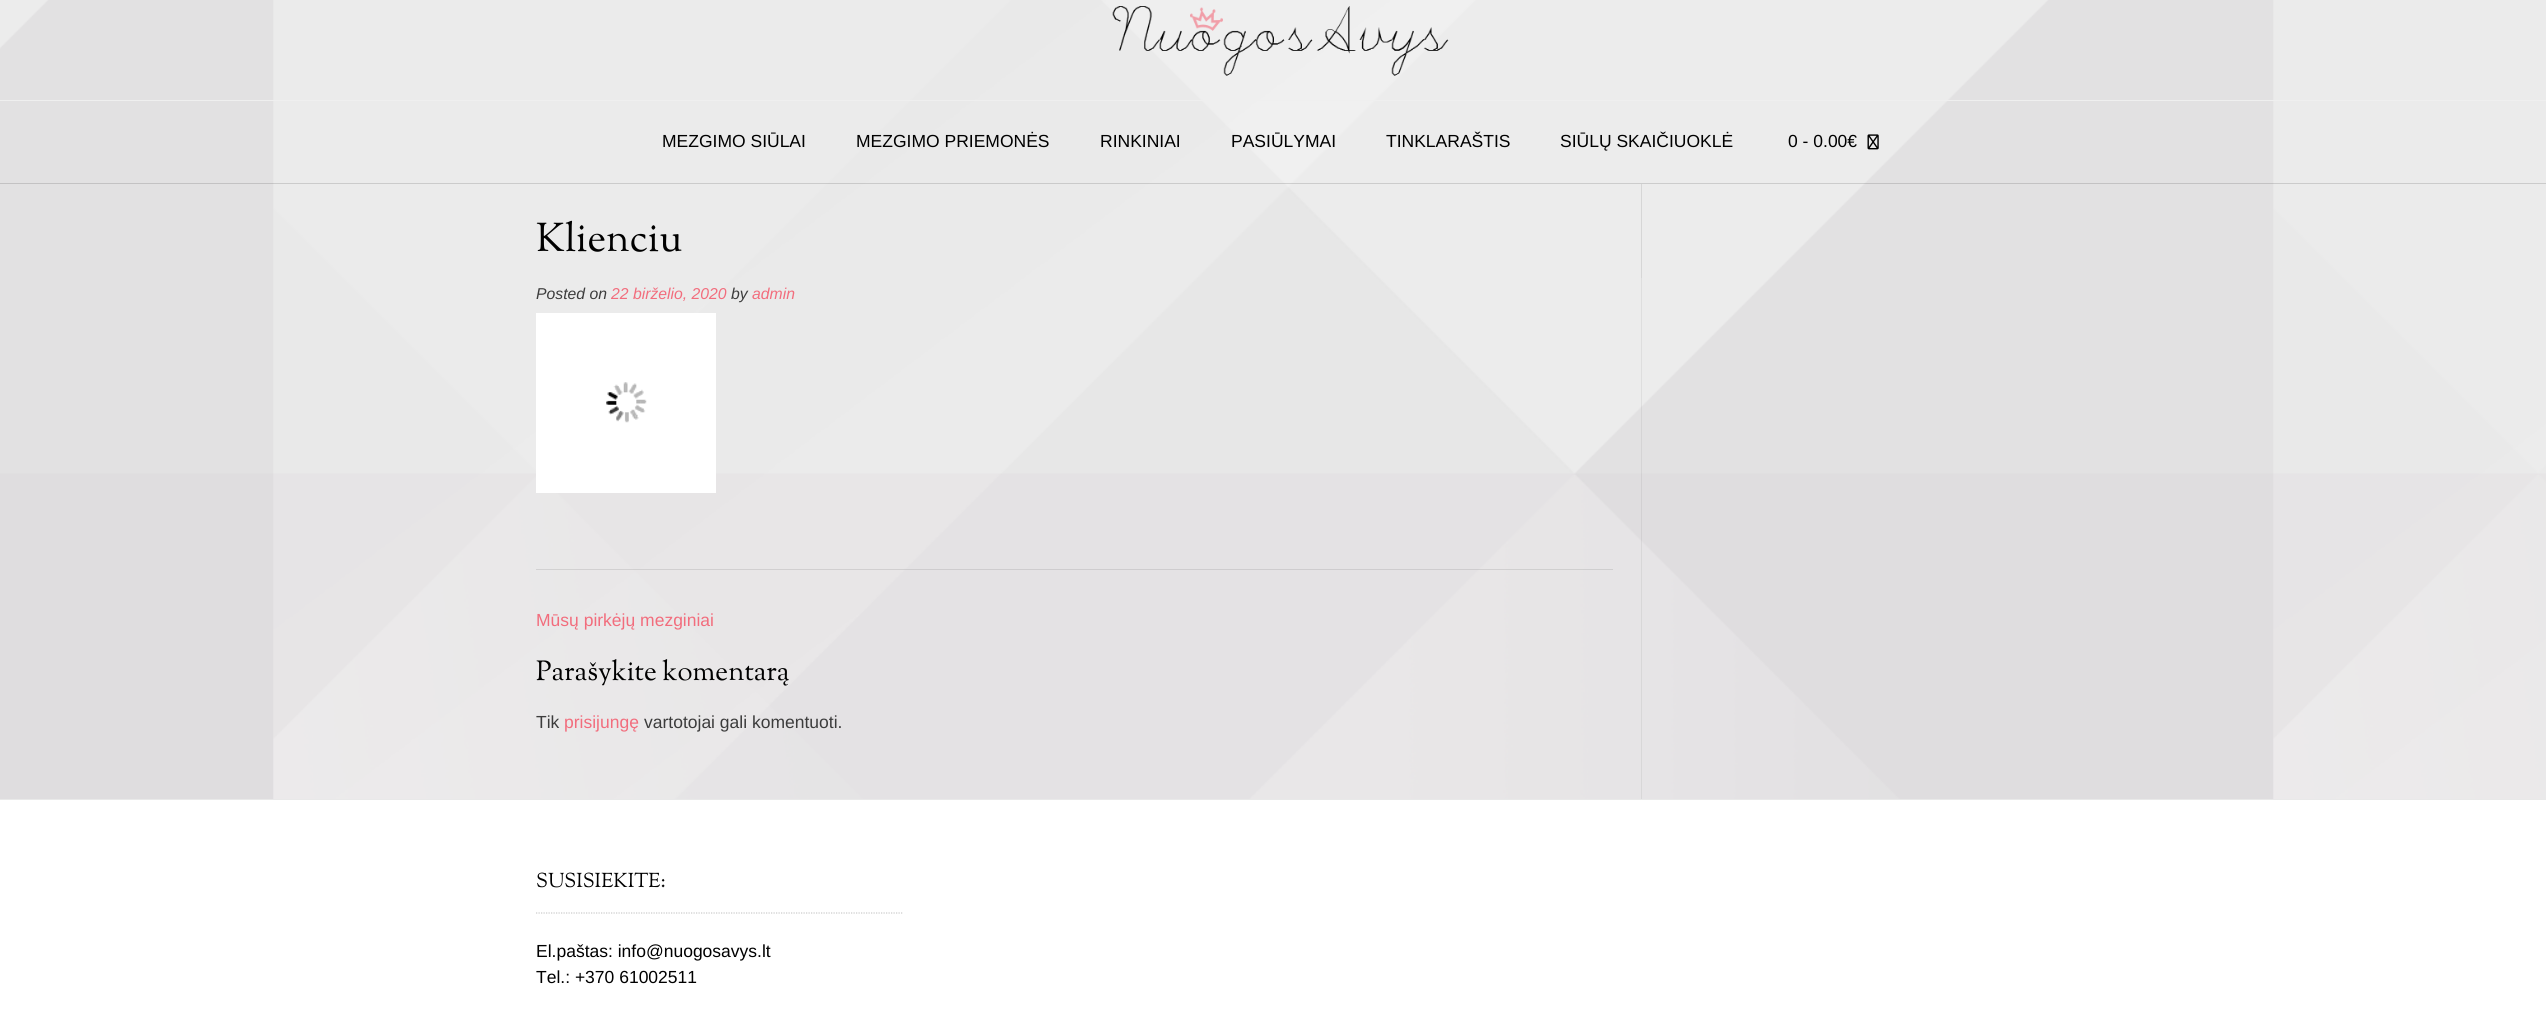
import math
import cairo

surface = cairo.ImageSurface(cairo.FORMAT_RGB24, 2546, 1015)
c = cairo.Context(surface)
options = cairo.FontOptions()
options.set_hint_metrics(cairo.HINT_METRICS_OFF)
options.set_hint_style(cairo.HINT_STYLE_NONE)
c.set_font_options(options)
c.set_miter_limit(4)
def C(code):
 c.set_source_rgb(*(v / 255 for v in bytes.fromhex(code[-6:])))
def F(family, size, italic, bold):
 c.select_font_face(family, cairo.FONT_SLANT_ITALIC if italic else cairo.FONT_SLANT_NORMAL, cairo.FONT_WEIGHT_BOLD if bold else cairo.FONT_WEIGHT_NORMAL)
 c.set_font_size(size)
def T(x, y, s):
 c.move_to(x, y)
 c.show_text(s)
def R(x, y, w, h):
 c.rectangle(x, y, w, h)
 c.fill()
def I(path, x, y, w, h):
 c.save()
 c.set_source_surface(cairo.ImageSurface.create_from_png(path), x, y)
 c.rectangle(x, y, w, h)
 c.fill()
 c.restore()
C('ffffff')
c.paint()
I('1.png',0,0,2546,799)
c.set_source_rgba(0,0,0,0.14)
R(0,183,2546,1)
I('2.png',1112,6,337,70)
C('efefef')
R(0,100,2546,1)
F('Liberation Sans',17.5,0,0)
C('000000')
T(662,147,'MEZGIMO SIŪLAI')
T(856,147,'MEZGIMO PRIEMONĖS')
T(1100,147,'RINKINIAI')
T(1231,147,'PASIŪLYMAI')
T(1386,147,'TINKLARAŠTIS')
T(1560,147,'SIŪLŲ SKAIČIUOKLĖ')
T(1788,147,'0 - 0.00€')
I('3.png',1867,134,12,16)
C('e3e3e3')
c.new_path()
c.move_to(1641,184)
c.line_to(1641,278)
c.line_to(2010,278)
c.line_to(1642,278)
c.line_to(1642,184)
c.close_path()
c.fill()
c.set_source_rgba(0,0,0,0.06)
R(1641,184,1,615)
c.set_source_rgba(0,0,0,0.1)
R(536,569,1077,1)
F('Sorts Mill Goudy',40,0,0)
C('000000')
T(536,251,'Klienciu')
F('Liberation Sans',15.75,1,0)
C('3c3c3c')
T(536,299,'Posted on')
C('f26d7d')
T(611,299,'22 birželio, 2020')
C('3c3c3c')
T(731,299,'by')
C('f26d7d')
T(752,299,'admin')
C('ffffff')
R(536,313,180,180)
I('4.png',606,382,41,41)
F('Liberation Sans',17.5,0,0)
C('f26d7d')
T(536,626,'Mūsų pirkėjų mezginiai')
F('Sorts Mill Goudy',27.5,0,0)
C('000000')
T(536,680,'Parašykite komentarą')
F('Liberation Sans',17.5,0,0)
C('3c3c3c')
T(536,728,'Tik')
C('f26d7d')
T(564,728,'prisijungę')
C('3c3c3c')
T(644,728,'vartotojai gali komentuoti.')
C('e9e9e9')
R(0,799,2546,1)
c.new_path()
c.move_to(536,913)
c.line_to(902.5,913)
C('cacaca')
c.set_line_width(1.2)
c.set_dash([1.25,1.25])
c.stroke()
F('Sorts Mill Goudy',20,0,0)
C('000000')
T(536,887,'SUSISIEKITE:')
F('Liberation Sans',17.5,0,0)
T(536,957,'El.paštas: info@nuogosavys.lt')
T(536,983,'Tel.: +370 61002511')
surface.write_to_png('o.png')
